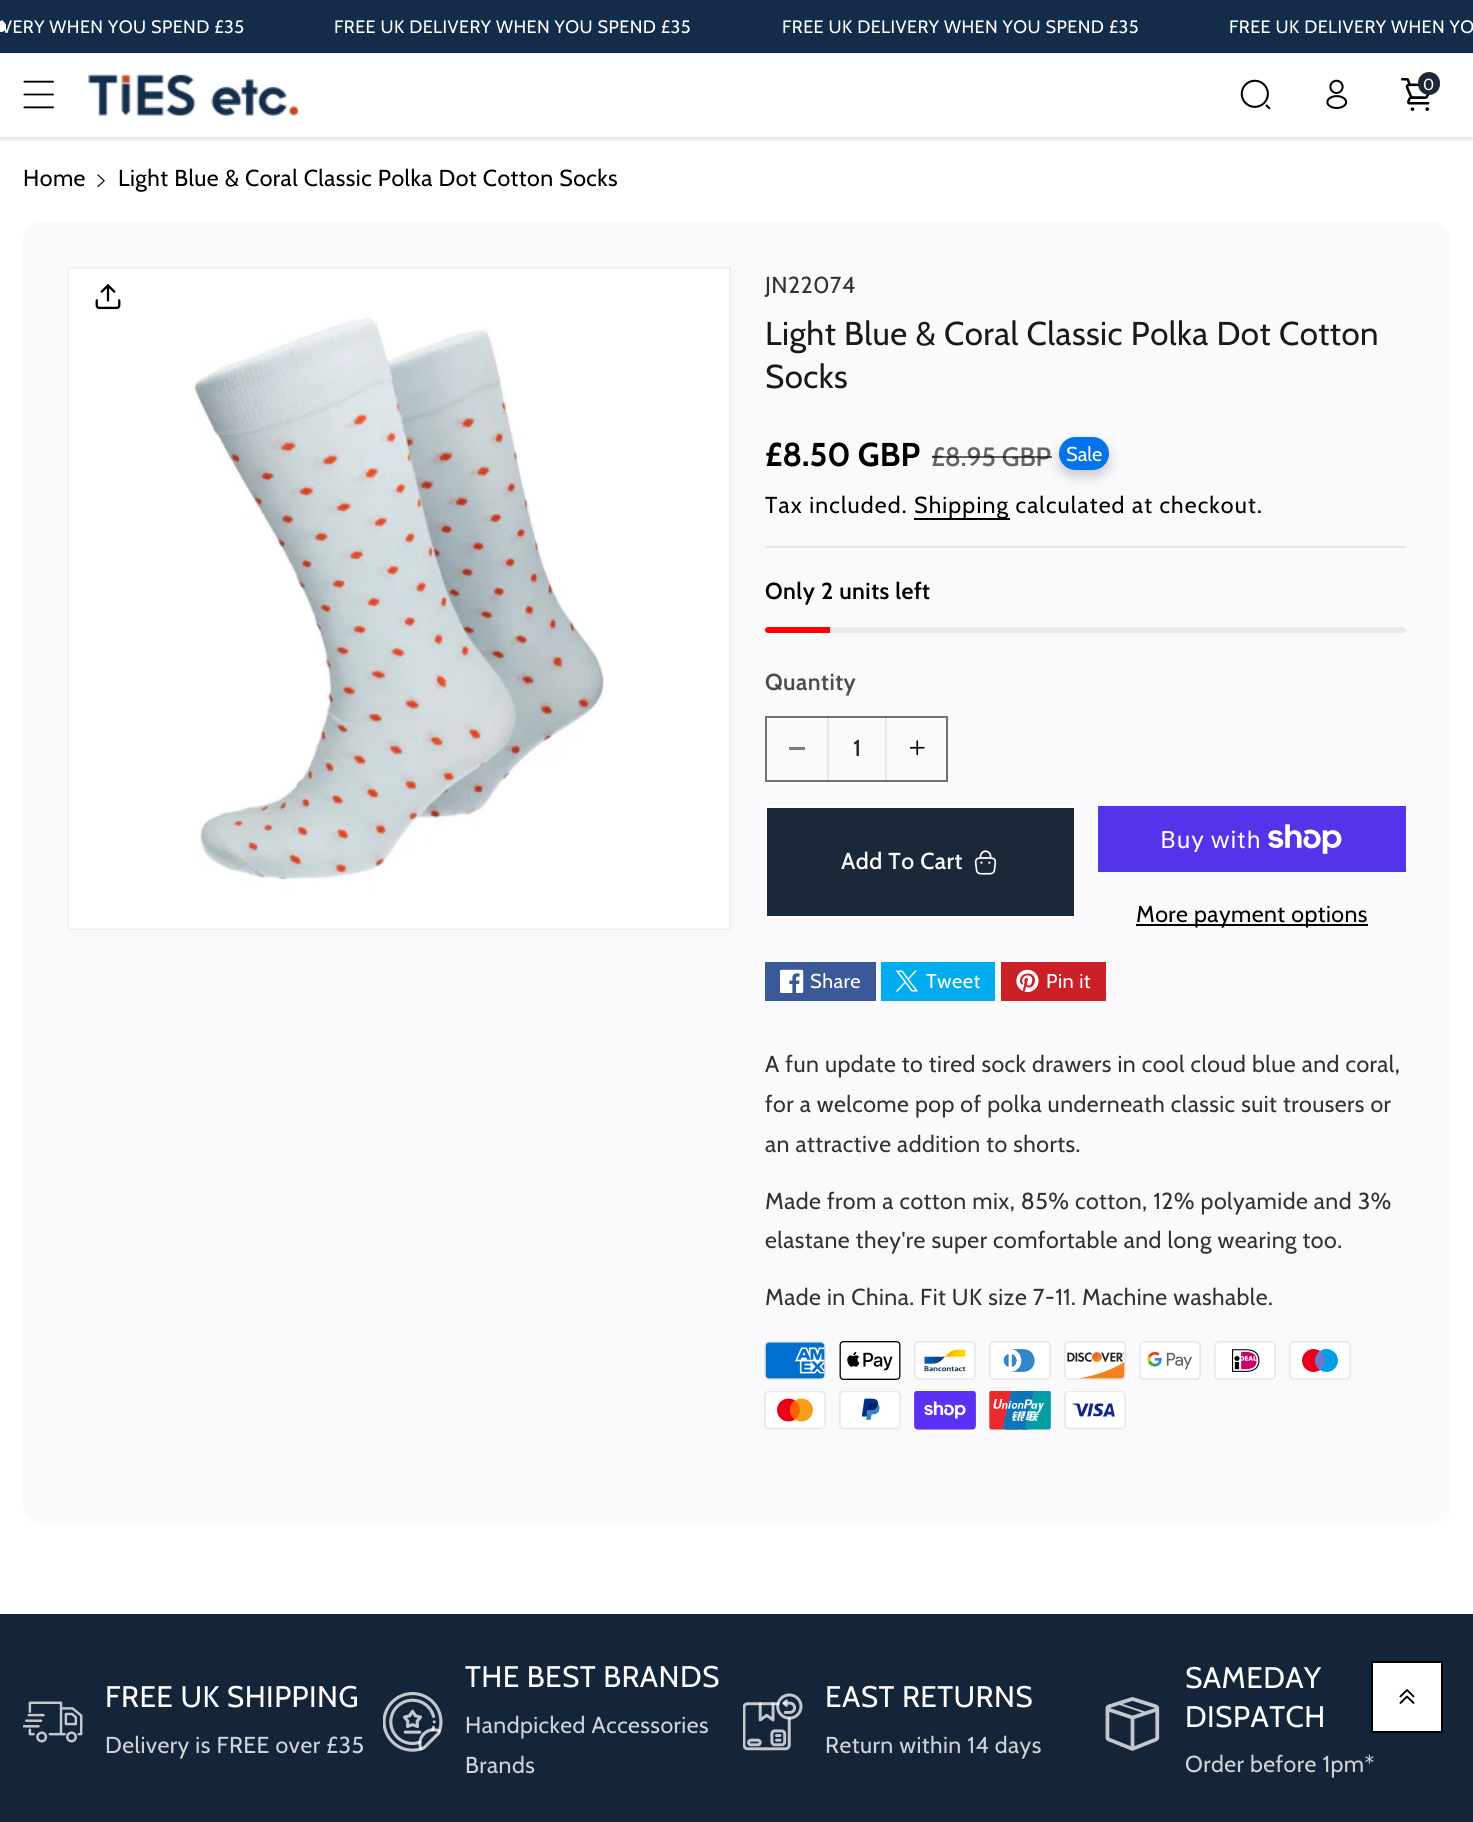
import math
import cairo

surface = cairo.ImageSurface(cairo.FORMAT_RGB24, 1473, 1822)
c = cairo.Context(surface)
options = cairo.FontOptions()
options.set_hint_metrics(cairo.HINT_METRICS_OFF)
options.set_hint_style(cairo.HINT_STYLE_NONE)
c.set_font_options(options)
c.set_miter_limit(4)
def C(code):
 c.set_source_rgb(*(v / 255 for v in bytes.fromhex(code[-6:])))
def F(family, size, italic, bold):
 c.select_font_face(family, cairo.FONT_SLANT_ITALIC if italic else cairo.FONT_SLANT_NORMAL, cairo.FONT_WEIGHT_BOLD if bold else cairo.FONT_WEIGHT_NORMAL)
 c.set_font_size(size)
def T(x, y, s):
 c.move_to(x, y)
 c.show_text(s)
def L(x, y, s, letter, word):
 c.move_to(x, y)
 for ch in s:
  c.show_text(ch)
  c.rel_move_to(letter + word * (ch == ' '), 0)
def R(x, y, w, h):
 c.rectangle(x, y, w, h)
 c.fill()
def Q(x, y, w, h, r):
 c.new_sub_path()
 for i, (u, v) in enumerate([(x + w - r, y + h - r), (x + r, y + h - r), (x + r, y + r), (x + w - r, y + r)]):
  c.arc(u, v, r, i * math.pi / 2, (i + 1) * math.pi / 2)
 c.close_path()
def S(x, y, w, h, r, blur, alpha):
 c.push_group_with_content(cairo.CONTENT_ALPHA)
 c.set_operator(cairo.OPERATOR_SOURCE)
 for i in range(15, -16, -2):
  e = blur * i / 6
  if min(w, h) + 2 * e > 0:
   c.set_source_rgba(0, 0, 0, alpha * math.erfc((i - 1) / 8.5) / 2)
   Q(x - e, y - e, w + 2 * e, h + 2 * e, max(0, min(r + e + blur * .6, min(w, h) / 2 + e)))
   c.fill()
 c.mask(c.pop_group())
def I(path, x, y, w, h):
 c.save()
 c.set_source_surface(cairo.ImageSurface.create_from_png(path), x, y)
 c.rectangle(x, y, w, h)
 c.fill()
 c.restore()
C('ffffff')
c.paint()
C('132c4a')
R(0,0,1473,53)
F('Cabin',18,0,0)
C('ffffff')
L(1,33,'VERY WHEN YOU SPEND £35',.45,0)
L(334,33,'FREE UK DELIVERY WHEN YOU SPEND £35',.45,0)
Q(-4,21,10,11,5)
c.fill()
L(782,33,'FREE UK DELIVERY WHEN YOU SPEND £35',.45,0)
L(1229,33,'FREE UK DELIVERY WHEN YO',.45,0)
C('000000')
S(0,56,1473,84,0,1.5,.1)
C('ffffff')
R(0,54,1473,83)
I('1.png',23,80,31,29)
I('2.png',88,74,211,42)
I('3.png',1240,79,31,31)
I('4.png',1326,79,22,30)
I('5.png',1401,78,29,33)
C('1b283a')
Q(1418,72,22,23,11)
c.fill()
F('Cabin',16,0,0)
C('ffffff')
L(1423,90,'0',.45,0)
F('Cabin',23.1,0,0)
C('000000')
L(23,186,'Home',.45,0)
I('6.png',97,174,8,14)
L(118,186,'Light Blue & Coral Classic Polka Dot Cotton Socks',.45,0)
C('fafafc')
Q(23,222,1428,1302,18)
c.fill()
c.rectangle(69,268,661,661)
C('eeeeef')
c.stroke()
I('7.png',69,268,660,661)
I('8.png',95,284,26,26)
C('323232')
L(765,293,'JN22074',.45,0)
F('Cabin',33,0,0)
C('191919')
L(765,345,'Light Blue & Coral Classic Polka Dot Cotton',.45,0)
L(765,388,'Socks',.45,0)
C('e6e6e8')
R(765,546,641,2)
F('Cabin',33,0,1)
C('000000')
T(765,466,'£8.50 GBP')
F('Cabin Medium',26.5,0,0)
C('646465')
T(931,466,'£8.95 GBP')
c.set_source_rgba(0,0,0,0.6)
R(932,456,120,2)
C('000000')
S(1059,443,50,33,16.5,6,.2)
C('0273ed')
Q(1059,437,50,33,16.5)
c.fill()
F('Cabin',20,0,0)
C('ffffff')
T(1066,461,'Sale')
F('Cabin',23.1,0,0)
C('000000')
L(765,513,'Tax included.',1.15,0)
R(914,518,96,2)
L(914,513,'Shipping calculated at checkout.',1.15,0)
F('Cabin SemiBold',23.1,0,0)
L(765,599,'Only 2 units left',.45,0)
C('e9e9ea')
Q(765,627,641,6,3)
c.fill()
C('ff0000')
c.new_path()
c.move_to(768,627)
c.line_to(830,627)
c.line_to(830,633)
c.line_to(768,633)
c.curve_to(766.5,633,765,631.5,765,630)
c.curve_to(765,628.5,766.5,627,768,627)
c.close_path()
c.fill()
C('4b4b4c')
L(765,690,'Quantity',.45,0)
C('7d7d7e')
R(789,747,16,3)
C('e7e7e9')
R(885,716,2,66)
R(827,716,2,66)
I('9.png',909,740,16,16)
c.rectangle(766,717,181,64)
c.set_source_rgba(0,0,0,0.55)
c.stroke()
F('Cabin Medium',23.1,0,0)
C('262626')
T(853,756,'1')
C('1b283a')
R(767,808,307,108)
I('10.png',974,850,23,25)
c.rectangle(766,807,309,110)
C('ffffff')
c.stroke()
L(841,869,'Add To Cart',.45,0)
C('5433eb')
R(1098,806,308,66)
F('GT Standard',24,0,0)
C('ffffff')
L(1160,848,'Buy with',.45,0)
I('11.png',1268,824,74,30)
C('000000')
R(1136,924,232,2)
F('Cabin',23.1,0,0)
L(1136,922,'More payment options',.45,0)
C('3b5998')
R(765,962,111,39)
I('12.png',780,969,24,24)
F('Cabin',20,0,0)
C('ffffff')
L(810,988,'Share',.45,0)
C('00aced')
R(881,962,114,39)
I('13.png',896,970,22,22)
C('ffffff')
L(926,988,'Tweet',.45,0)
C('cb2027')
R(1001,962,105,39)
I('14.png',1016,969,23,23)
C('ffffff')
L(1046,988,'Pin it',.45,0)
F('Cabin',23.1,0,0)
C('323232')
L(765,1072,'A fun update to tired sock drawers in cool cloud blue and coral,',.45,0)
L(765,1112,'for a welcome pop of polka underneath classic suit trousers or',.45,0)
L(765,1152,'an attractive addition to shorts.',.45,0)
L(765,1209,'Made from a cotton mix, 85% cotton, 12% polyamide and 3%',.45,0)
L(765,1248,'elastane they\'re super comfortable and long wearing too.',.45,0)
L(765,1305,'Made in China. Fit UK size 7-11. Machine washable.',.45,0)
I('15.png',764,1341,62,39)
I('16.png',839,1341,62,39)
I('17.png',914,1341,62,39)
I('18.png',989,1341,62,39)
I('19.png',1064,1341,62,39)
I('20.png',1139,1341,62,39)
I('21.png',1214,1341,62,39)
I('22.png',1289,1341,62,39)
I('23.png',764,1391,62,39)
I('24.png',839,1391,62,39)
I('25.png',914,1391,62,39)
I('26.png',989,1391,62,39)
I('27.png',1064,1391,62,39)
C('142439')
R(0,1614,1473,208)
I('28.png',23,1701,60,42)
F('Cabin',29.75,0,0)
C('ffffff')
L(105,1707,'FREE UK SHIPPING',.45,0)
F('Cabin',23.1,0,0)
C('d0d3d7')
L(105,1753,'Delivery is FREE over £35',.45,0)
I('29.png',383,1692,60,60)
F('Cabin',29.75,0,0)
C('ffffff')
L(465,1687,'THE BEST BRANDS',.45,0)
F('Cabin',23.1,0,0)
C('d0d3d7')
L(465,1733,'Handpicked Accessories',.45,0)
L(465,1773,'Brands',.45,0)
I('30.png',743,1693,60,58)
F('Cabin',29.75,0,0)
C('ffffff')
L(825,1707,'EAST RETURNS',.45,0)
F('Cabin',23.1,0,0)
C('d0d3d7')
L(825,1753,'Return within 14 days',.45,0)
I('31.png',1105,1697,55,54)
F('Cabin',29.75,0,0)
C('ffffff')
L(1185,1688,'SAMEDAY',.45,0)
L(1185,1727,'DISPATCH',.45,0)
F('Cabin',23.1,0,0)
C('d0d3d7')
L(1185,1772,'Order before 1pm*',.45,0)
C('ffffff')
R(1373,1663,68,68)
I('32.png',1399,1689,16,15)
c.rectangle(1372,1662,70,70)
C('000000')
c.stroke()
surface.write_to_png('o.png')
